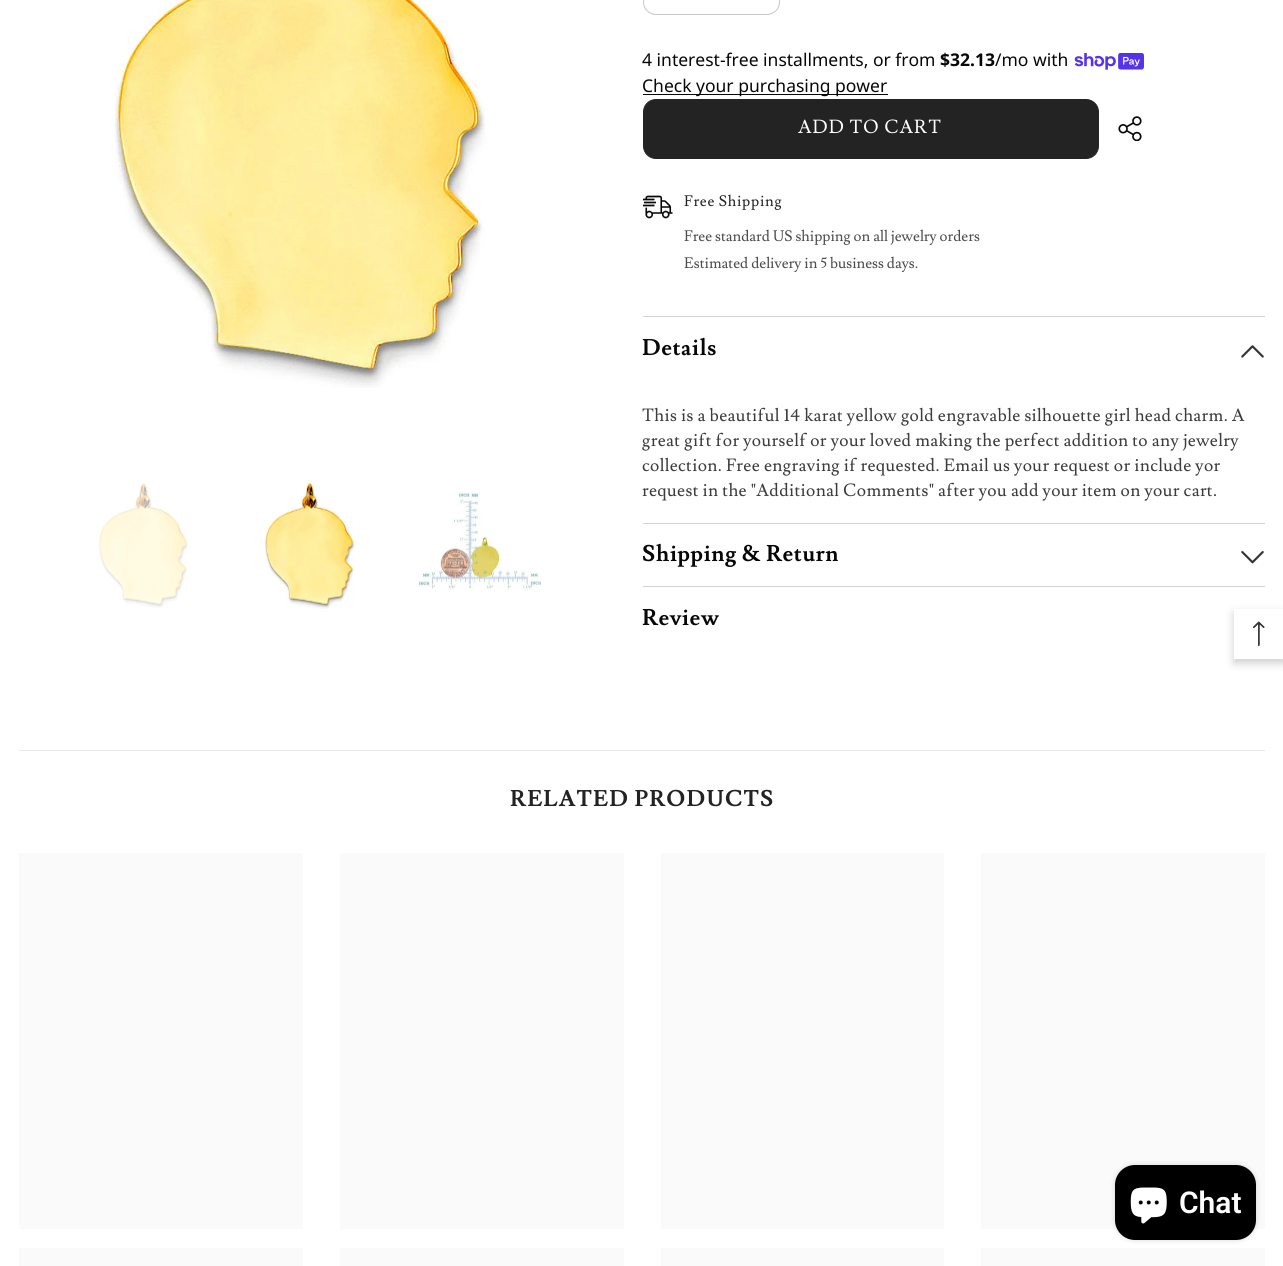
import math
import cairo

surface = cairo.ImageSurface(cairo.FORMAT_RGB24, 1283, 1266)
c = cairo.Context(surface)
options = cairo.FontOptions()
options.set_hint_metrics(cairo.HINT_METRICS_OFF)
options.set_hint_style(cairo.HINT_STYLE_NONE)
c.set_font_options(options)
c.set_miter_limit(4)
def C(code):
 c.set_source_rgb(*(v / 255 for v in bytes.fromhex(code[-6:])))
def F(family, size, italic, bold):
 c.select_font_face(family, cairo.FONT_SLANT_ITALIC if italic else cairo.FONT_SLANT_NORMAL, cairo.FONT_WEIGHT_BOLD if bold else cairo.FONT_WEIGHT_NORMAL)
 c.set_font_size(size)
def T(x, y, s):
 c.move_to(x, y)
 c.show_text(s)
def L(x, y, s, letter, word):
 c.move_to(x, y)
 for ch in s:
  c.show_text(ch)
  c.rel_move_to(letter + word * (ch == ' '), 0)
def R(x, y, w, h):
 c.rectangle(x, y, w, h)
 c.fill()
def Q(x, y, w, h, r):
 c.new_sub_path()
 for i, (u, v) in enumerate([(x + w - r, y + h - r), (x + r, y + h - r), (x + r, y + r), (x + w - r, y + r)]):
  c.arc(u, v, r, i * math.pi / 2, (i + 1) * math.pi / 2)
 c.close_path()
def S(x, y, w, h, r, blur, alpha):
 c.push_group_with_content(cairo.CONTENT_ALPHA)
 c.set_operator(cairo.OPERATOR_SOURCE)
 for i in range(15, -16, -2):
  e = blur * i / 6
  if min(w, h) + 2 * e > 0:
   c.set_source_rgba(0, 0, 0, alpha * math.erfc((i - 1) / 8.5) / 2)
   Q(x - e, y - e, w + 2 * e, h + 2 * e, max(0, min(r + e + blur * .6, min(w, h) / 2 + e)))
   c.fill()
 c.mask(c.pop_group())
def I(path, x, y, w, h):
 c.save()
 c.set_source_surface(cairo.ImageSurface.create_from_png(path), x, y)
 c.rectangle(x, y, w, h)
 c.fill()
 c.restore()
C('ffffff')
c.paint()
I('1.png',114,0,374,388)
I('2.png',99,482,89,126)
I('3.png',264,482,91,127)
I('4.png',418,492,123,98)
Q(643.5,-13.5,136,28,12.5)
C('c7c7c7')
c.set_line_width(1)
c.stroke()
F('Noto Sans',17.5,0,0)
C('070707')
T(642,66,'4 interest-free installments, or from')
F('Noto Sans',17.5,0,1)
T(940,66,'$32.13')
F('Noto Sans',17.5,0,0)
T(995,66,'/mo with')
I('5.png',1074,53,70,17)
R(643,94,245,1)
T(642,92,'Check your purchasing power')
C('232323')
Q(643.5,99.5,455,59,12.5)
c.fill_preserve()
c.stroke()
F('Lusitana',18.75,0,0)
C('ffffff')
L(798,133,'ADD TO CART',1,0)
I('6.png',1118,116,24,25)
I('7.png',643,195,30,24)
F('Lusitana',15,0,0)
C('232323')
L(684,206,'Free Shipping',.75,0)
C('4d4d4d')
T(684,241,'Free standard US shipping on all jewelry orders')
T(684,268,'Estimated delivery in 5 business days.')
C('d3d3d3')
R(643,316,622,1)
F('Lusitana',22.5,0,1)
C('070707')
L(642,355,'Details',.5,0)
I('8.png',1241,345,23,13)
F('Lusitana',17.5,0,0)
C('3c3c3c')
L(642,421,'This is a beautiful 14 karat yellow gold engravable silhouette girl head charm. A',.35,0)
L(642,446,'great gift for yourself or your loved making the perfect addition to any jewelry',.35,0)
L(642,471,'collection. Free engraving if requested. Email us your request or include yor',.35,0)
L(642,496,'request in the "Additional Comments" after you add your item on your cart.',.35,0)
C('d3d3d3')
R(643,523,622,1)
F('Lusitana',22.5,0,1)
C('070707')
L(642,561,'Shipping & Return',.5,0)
I('9.png',1241,551,23,13)
C('d3d3d3')
R(643,586,622,1)
C('070707')
L(642,625,'Review',.5,0)
C('e8e8e8')
R(19,750,1246,1)
C('232323')
L(510,806,'RELATED PRODUCTS',1.1,0)
C('fafafa')
R(19,853,284,376)
gradient = cairo.LinearGradient(-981,1260,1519,1260)
gradient.add_color_stop_rgba(.04,0.98,0.98,0.98,1)
gradient.add_color_stop_rgba(.25,0.945,0.949,0.953,1)
gradient.add_color_stop_rgba(.36,0.98,0.98,0.98,1)
c.set_source(gradient)
R(19,1248,284,18)
C('fafafa')
R(340,853,284,376)
gradient = cairo.LinearGradient(-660,1260,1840,1260)
gradient.add_color_stop_rgba(.04,0.98,0.98,0.98,1)
gradient.add_color_stop_rgba(.25,0.945,0.949,0.953,1)
gradient.add_color_stop_rgba(.36,0.98,0.98,0.98,1)
c.set_source(gradient)
R(340,1248,284,18)
C('fafafa')
R(661,853,283,376)
gradient = cairo.LinearGradient(-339,1260,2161,1260)
gradient.add_color_stop_rgba(.04,0.98,0.98,0.98,1)
gradient.add_color_stop_rgba(.25,0.945,0.949,0.953,1)
gradient.add_color_stop_rgba(.36,0.98,0.98,0.98,1)
c.set_source(gradient)
R(661,1248,283,18)
C('fafafa')
R(981,853,284,376)
gradient = cairo.LinearGradient(-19,1260,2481,1260)
gradient.add_color_stop_rgba(.04,0.98,0.98,0.98,1)
gradient.add_color_stop_rgba(.25,0.945,0.949,0.953,1)
gradient.add_color_stop_rgba(.36,0.98,0.98,0.98,1)
c.set_source(gradient)
R(981,1248,284,18)
C('000000')
S(1234,613,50,50,0,4.5,.2)
C('ffffff')
R(1234,609,49,50)
I('10.png',1253,621,12,25)
C('000000')
S(1115,1165,141,75,20,3,.15)
C('000000')
Q(1115,1165,141,75,20)
c.fill()
I('11.png',1130,1187,37,37)
F('Roboto SemiBold',30,0,0)
C('ffffff')
T(1179,1213,'Chat')
surface.write_to_png('o.png')
